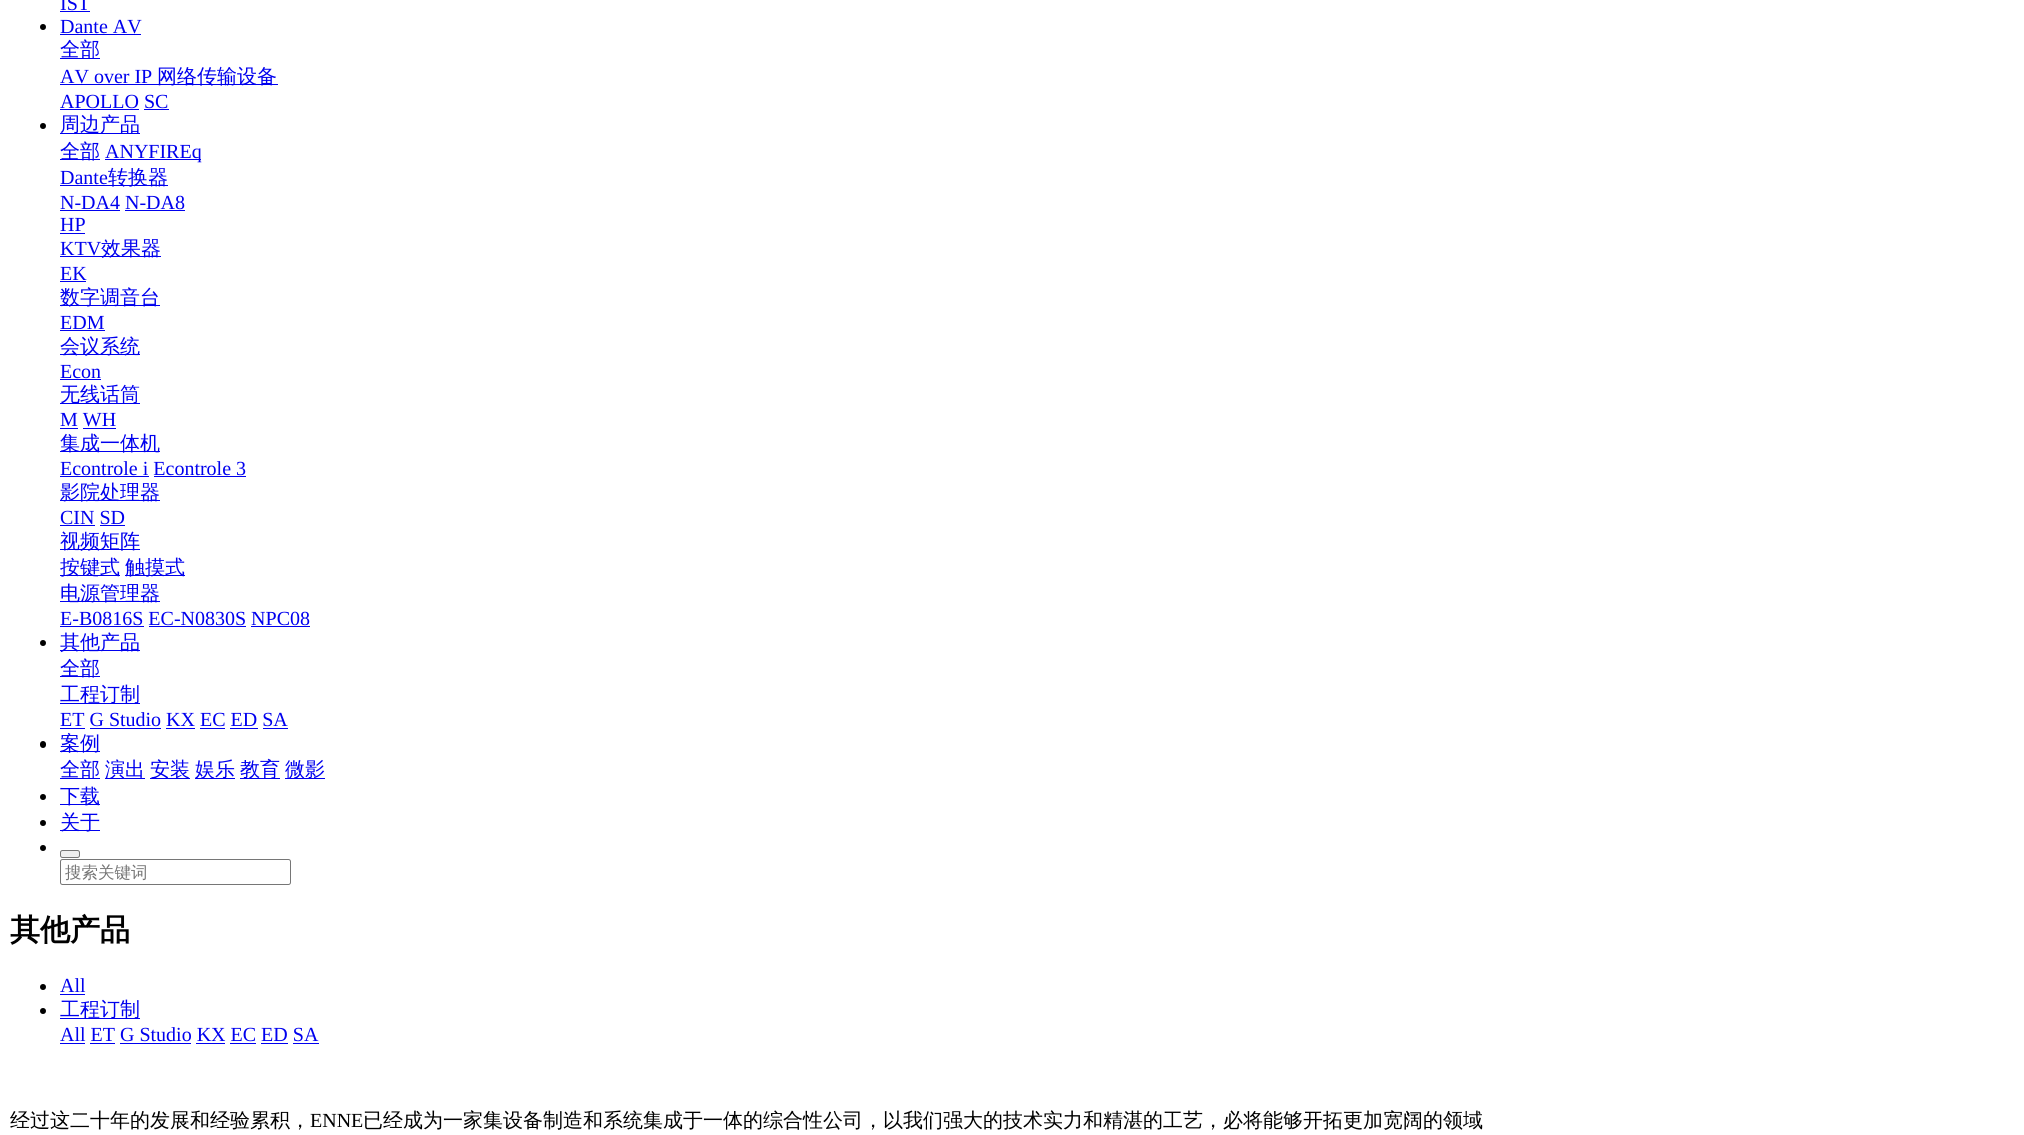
import math
import cairo

surface = cairo.ImageSurface(cairo.FORMAT_RGB24, 2024, 1135)
c = cairo.Context(surface)
options = cairo.FontOptions()
options.set_hint_metrics(cairo.HINT_METRICS_OFF)
options.set_hint_style(cairo.HINT_STYLE_NONE)
c.set_font_options(options)
c.set_miter_limit(4)
def C(code):
 c.set_source_rgb(*(v / 255 for v in bytes.fromhex(code[-6:])))
def F(family, size, italic, bold):
 c.select_font_face(family, cairo.FONT_SLANT_ITALIC if italic else cairo.FONT_SLANT_NORMAL, cairo.FONT_WEIGHT_BOLD if bold else cairo.FONT_WEIGHT_NORMAL)
 c.set_font_size(size)
def T(x, y, s):
 c.move_to(x, y)
 c.show_text(s)
def R(x, y, w, h):
 c.rectangle(x, y, w, h)
 c.fill()
def Q(x, y, w, h, r):
 c.new_sub_path()
 for i, (u, v) in enumerate([(x + w - r, y + h - r), (x + r, y + h - r), (x + r, y + r), (x + w - r, y + r)]):
  c.arc(u, v, r, i * math.pi / 2, (i + 1) * math.pi / 2)
 c.close_path()
C('ffffff')
c.paint()
F('Liberation Serif',20,0,0)
C('0000ee')
T(60,10,'IST')
R(60,11,30,1)
C('000000')
c.new_path()
c.arc(43,27,3,0,2 * math.pi)
c.fill()
C('0000ee')
T(60,33,'Dante AV')
R(60,34,81,1)
R(60,58,40,1)
F('WenQuanYi Zen Hei Medium',20,0,0)
T(60,56,'全部')
F('Liberation Serif',20,0,0)
T(60,83,'AV over IP')
R(60,84,218,1)
F('WenQuanYi Zen Hei Medium',20,0,0)
T(157,83,'网络传输设备')
F('Liberation Serif',20,0,0)
T(60,108,'APOLLO SC')
R(60,109,79,1)
R(144,109,25,1)
C('000000')
c.new_path()
c.arc(43,126,3,0,2 * math.pi)
c.fill()
C('0000ee')
R(60,133,80,1)
F('WenQuanYi Zen Hei Medium',20,0,0)
T(60,131,'周边产品')
R(60,159,40,1)
T(60,158,'全部')
R(105,159,96,1)
F('Liberation Serif',20,0,0)
T(105,158,'ANYFIREq')
T(60,184,'Dante')
R(60,185,108,1)
F('WenQuanYi Zen Hei Medium',20,0,0)
T(108,184,'转换器')
F('Liberation Serif',20,0,0)
T(60,209,'N-DA4 N-DA8')
R(60,210,60,1)
R(125,210,60,1)
T(60,231,'HP')
R(60,233,25,1)
T(60,255,'KTV')
R(60,256,101,1)
F('WenQuanYi Zen Hei Medium',20,0,0)
T(101,255,'效果器')
F('Liberation Serif',20,0,0)
T(60,280,'EK')
R(60,281,26,1)
R(60,305,100,1)
F('WenQuanYi Zen Hei Medium',20,0,0)
T(60,304,'数字调音台')
F('Liberation Serif',20,0,0)
T(60,329,'EDM')
R(60,330,45,1)
R(60,354,80,1)
F('WenQuanYi Zen Hei Medium',20,0,0)
T(60,353,'会议系统')
F('Liberation Serif',20,0,0)
T(60,378,'Econ')
R(60,379,41,1)
R(60,403,80,1)
F('WenQuanYi Zen Hei Medium',20,0,0)
T(60,401,'无线话筒')
F('Liberation Serif',20,0,0)
T(60,426,'M WH')
R(60,428,18,1)
R(83,428,33,1)
R(60,451,100,1)
F('WenQuanYi Zen Hei Medium',20,0,0)
T(60,450,'集成一体机')
F('Liberation Serif',20,0,0)
T(60,475,'Econtrole i Econtrole 3')
R(60,476,89,1)
R(154,476,92,1)
R(60,500,100,1)
F('WenQuanYi Zen Hei Medium',20,0,0)
T(60,499,'影院处理器')
F('Liberation Serif',20,0,0)
T(60,524,'CIN SD')
R(60,525,35,1)
R(100,525,25,1)
R(60,549,80,1)
F('WenQuanYi Zen Hei Medium',20,0,0)
T(60,548,'视频矩阵')
R(60,575,60,1)
T(60,574,'按键式')
R(125,575,60,1)
T(125,574,'触摸式')
R(60,601,100,1)
T(60,600,'电源管理器')
F('Liberation Serif',20,0,0)
T(60,625,'E-B0816S EC-N0830S NPC08')
R(60,626,84,1)
R(149,626,97,1)
R(251,626,59,1)
C('000000')
c.new_path()
c.arc(43,643,3,0,2 * math.pi)
c.fill()
C('0000ee')
R(60,650,80,1)
F('WenQuanYi Zen Hei Medium',20,0,0)
T(60,649,'其他产品')
R(60,676,40,1)
T(60,675,'全部')
R(60,703,80,1)
T(60,701,'工程订制')
F('Liberation Serif',20,0,0)
T(60,726,'ET G Studio KX EC ED SA')
R(60,728,25,1)
R(90,728,71,1)
R(166,728,29,1)
R(200,728,25,1)
R(230,728,28,1)
R(263,728,25,1)
C('000000')
Q(40,741,6,7,3)
c.fill()
C('0000ee')
R(60,751,40,1)
F('WenQuanYi Zen Hei Medium',20,0,0)
T(60,750,'案例')
R(60,778,40,1)
T(60,776,'全部')
R(105,778,40,1)
T(105,776,'演出')
R(150,778,40,1)
T(150,776,'安装')
R(195,778,40,1)
T(195,776,'娱乐')
R(240,778,40,1)
T(240,776,'教育')
R(285,778,40,1)
T(285,776,'微影')
C('000000')
c.new_path()
c.arc(43,797,3,0,2 * math.pi)
c.fill()
C('0000ee')
R(60,804,40,1)
T(60,803,'下载')
C('000000')
c.new_path()
c.arc(43,823,3,0,2 * math.pi)
c.fill()
C('0000ee')
R(60,830,40,1)
T(60,829,'关于')
C('000000')
c.new_path()
c.arc(43,848,3,0,2 * math.pi)
c.fill()
C('efefef')
Q(60.5,850.5,19,7,2)
c.fill_preserve()
C('767676')
c.set_line_width(1)
c.stroke()
Q(60.5,859.5,230,25,2)
c.stroke()
F('WenQuanYi Zen Hei Medium',16.5,0,0)
C('757575')
T(65,878,'搜索关键词')
F('WenQuanYi Zen Hei',30,0,1)
C('000000')
T(10,940,'其他产品')
c.new_path()
c.arc(43,987,3,0,2 * math.pi)
c.fill()
F('Liberation Serif',20,0,0)
C('0000ee')
T(60,992,'All')
R(60,994,25,1)
C('000000')
c.new_path()
c.arc(43,1011,3,0,2 * math.pi)
c.fill()
C('0000ee')
R(60,1018,80,1)
F('WenQuanYi Zen Hei Medium',20,0,0)
T(60,1016,'工程订制')
F('Liberation Serif',20,0,0)
T(60,1041,'All ET G Studio KX EC ED SA')
R(60,1043,25,1)
R(90,1043,25,1)
R(120,1043,71,1)
R(196,1043,29,1)
R(230,1043,26,1)
R(261,1043,27,1)
R(293,1043,26,1)
F('WenQuanYi Zen Hei Medium',20,0,0)
C('000000')
T(10,1127,'经过这二十年的发展和经验累积，')
F('Liberation Serif',20,0,0)
T(310,1127,'ENNE')
F('WenQuanYi Zen Hei Medium',20,0,0)
T(363,1127,'已经成为一家集设备制造和系统集成于一体的综合性公司，以我们强大的技术实力和精湛的工艺，必将能够开拓更加宽阔的领域')
surface.write_to_png('o.png')
